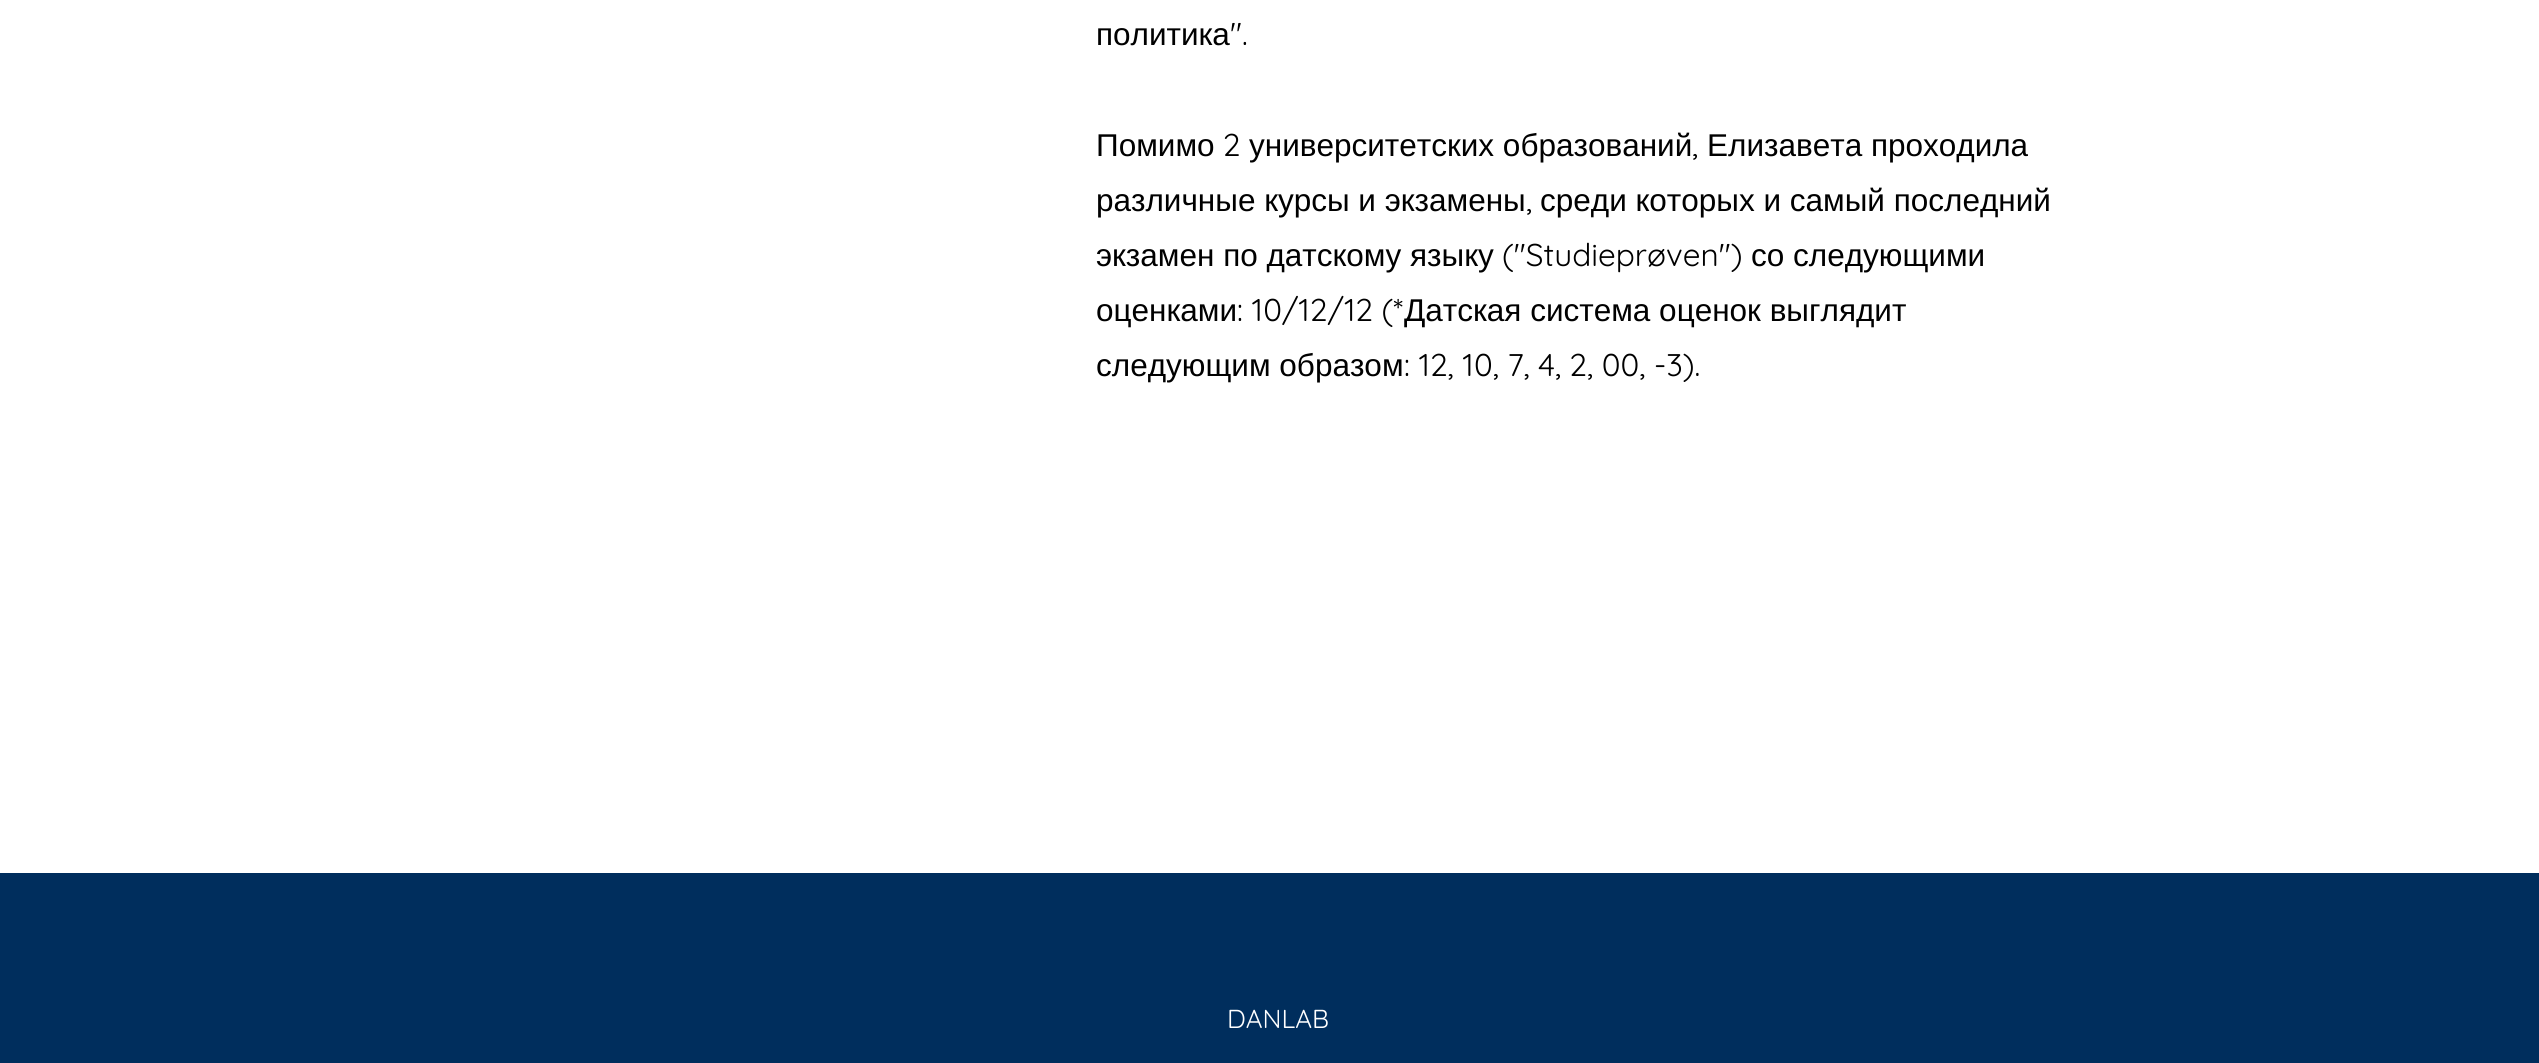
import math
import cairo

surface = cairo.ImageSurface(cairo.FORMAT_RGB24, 2539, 1063)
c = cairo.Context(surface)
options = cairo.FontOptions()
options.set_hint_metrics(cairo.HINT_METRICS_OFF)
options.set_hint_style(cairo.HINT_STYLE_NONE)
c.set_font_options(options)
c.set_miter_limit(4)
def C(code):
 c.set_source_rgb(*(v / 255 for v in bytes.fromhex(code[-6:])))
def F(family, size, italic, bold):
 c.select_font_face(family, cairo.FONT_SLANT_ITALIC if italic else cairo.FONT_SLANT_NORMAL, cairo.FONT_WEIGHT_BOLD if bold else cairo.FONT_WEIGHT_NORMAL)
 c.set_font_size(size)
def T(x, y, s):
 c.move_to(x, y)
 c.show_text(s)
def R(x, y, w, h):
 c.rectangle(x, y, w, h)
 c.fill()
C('ffffff')
c.paint()
F('Liberation Sans',31.5,0,0)
C('000000')
T(1096,45,'политика')
F('Quicksand',31.5,0,0)
T(1230,45,'".')
F('Liberation Sans',31.5,0,0)
T(1096,156,'Помимо')
F('Quicksand',31.5,0,0)
T(1223,156,'2')
F('Liberation Sans',31.5,0,0)
T(1249,156,'университетских образований')
F('Quicksand',31.5,0,0)
T(1692,156,',')
F('Liberation Sans',31.5,0,0)
T(1707,156,'Елизавета проходила')
T(1096,211,'различные курсы и экзамены')
F('Quicksand',31.5,0,0)
T(1526,211,',')
F('Liberation Sans',31.5,0,0)
T(1540,211,'среди которых и самый последний')
T(1096,266,'экзамен по датскому языку')
F('Quicksand',31.5,0,0)
T(1502,266,'("Studieprøven")')
F('Liberation Sans',31.5,0,0)
T(1751,266,'со следующими')
T(1096,321,'оценками')
F('Quicksand',31.5,0,0)
T(1237,321,': 10/12/12 (*')
F('Liberation Sans',31.5,0,0)
T(1404,321,'Датская система оценок выглядит')
T(1096,376,'следующим образом')
F('Quicksand',31.5,0,0)
T(1404,376,': 12, 10, 7, 4, 2, 00, -3).')
C('002e5d')
R(0,873,2539,190)
F('Quicksand',26,0,0)
C('ffffff')
T(1227,1028,'DANLAB')
surface.write_to_png('o.png')
